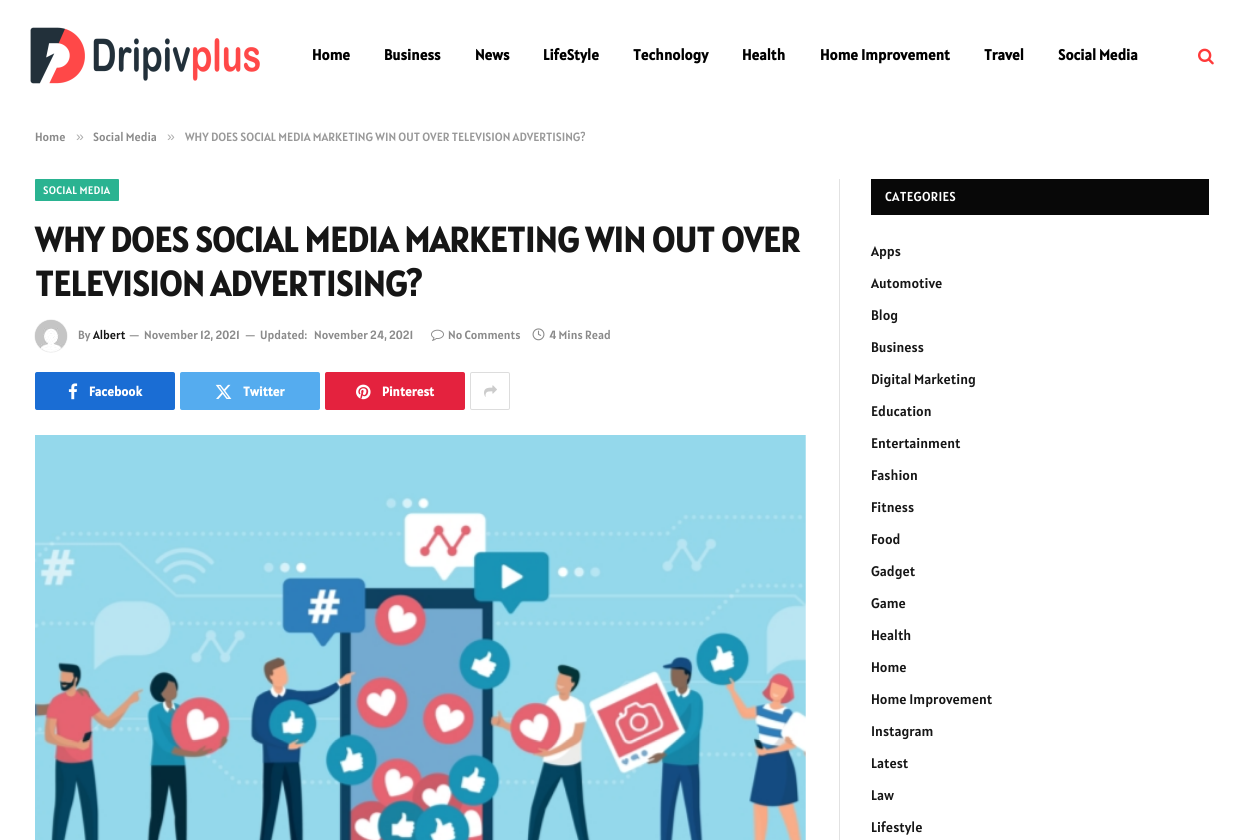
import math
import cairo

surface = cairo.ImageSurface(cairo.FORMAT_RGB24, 1244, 840)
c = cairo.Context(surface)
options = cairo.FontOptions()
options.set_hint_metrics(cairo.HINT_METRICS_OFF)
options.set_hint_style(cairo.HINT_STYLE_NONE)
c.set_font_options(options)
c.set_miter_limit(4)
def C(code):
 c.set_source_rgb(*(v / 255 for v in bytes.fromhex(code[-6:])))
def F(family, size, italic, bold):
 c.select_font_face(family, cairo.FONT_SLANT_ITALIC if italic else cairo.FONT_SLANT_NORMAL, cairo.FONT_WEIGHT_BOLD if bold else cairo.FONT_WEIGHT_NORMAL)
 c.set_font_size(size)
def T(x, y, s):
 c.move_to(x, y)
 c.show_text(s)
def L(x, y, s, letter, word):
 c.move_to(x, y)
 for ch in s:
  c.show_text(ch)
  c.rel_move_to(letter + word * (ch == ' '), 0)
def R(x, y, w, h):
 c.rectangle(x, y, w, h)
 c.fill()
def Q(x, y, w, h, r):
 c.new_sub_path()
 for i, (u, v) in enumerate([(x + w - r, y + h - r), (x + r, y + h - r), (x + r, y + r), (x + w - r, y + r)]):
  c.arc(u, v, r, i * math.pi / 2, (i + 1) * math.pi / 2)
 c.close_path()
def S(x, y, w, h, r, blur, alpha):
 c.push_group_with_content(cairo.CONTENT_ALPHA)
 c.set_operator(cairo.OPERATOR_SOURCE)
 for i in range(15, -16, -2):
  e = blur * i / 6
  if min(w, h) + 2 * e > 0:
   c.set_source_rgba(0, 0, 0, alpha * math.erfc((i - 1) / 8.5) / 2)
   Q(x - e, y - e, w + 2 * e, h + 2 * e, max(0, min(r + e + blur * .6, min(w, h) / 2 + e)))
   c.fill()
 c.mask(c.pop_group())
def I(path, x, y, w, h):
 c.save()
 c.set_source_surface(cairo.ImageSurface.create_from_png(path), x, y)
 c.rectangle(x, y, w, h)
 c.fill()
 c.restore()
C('ffffff')
c.paint()
I('1.png',30,27,230,57)
F('Alatsi',15,0,1)
C('000000')
T(312,60,'Home')
T(384,60,'Business')
T(475,60,'News')
T(543,60,'LifeStyle')
T(633,60,'Technology')
T(742,60,'Health')
T(820,60,'Home Improvement')
T(984,60,'Travel')
T(1058,60,'Social Media')
I('2.png',1198,48,16,17)
F('Alatsi',12,0,0)
C('8a8a8a')
T(35,141,'Home')
F('Liberation Sans',14,0,0)
C('adadad')
T(76,141,'»')
F('Alatsi',12,0,0)
C('8a8a8a')
T(93,141,'Social Media')
F('Liberation Sans',14,0,0)
C('adadad')
T(167,141,'»')
F('Alatsi',12,0,0)
C('999999')
T(185,141,'WHY DOES SOCIAL MEDIA MARKETING WIN OUT OVER TELEVISION ADVERTISING?')
C('2ab391')
Q(35,179,84,22,1)
c.fill()
F('Alatsi',11,0,0)
C('ffffff')
L(43,194,'SOCIAL MEDIA',.25,0)
F('Alatsi',35,0,1)
C('161616')
L(35,252,'WHY DOES SOCIAL MEDIA MARKETING WIN OUT OVER',-.15,0)
L(35,296,'TELEVISION ADVERTISING?',-.15,0)
C('000000')
S(35,320,32,32,16,.5,.2)
I('3.png',35,320,32,32)
F('Alatsi',12,0,0)
C('8a8a8a')
T(78,339,'By')
C('161616')
T(93,339,'Albert')
F('Alatsi',11,0,0)
C('8a8a8a')
T(129,339,'—')
F('Alatsi',12,0,0)
T(144,339,'November 12, 2021')
F('Alatsi',11,0,0)
T(245,339,'—')
F('Alatsi',12,0,0)
T(260,339,'Updated:')
T(314,339,'November 24, 2021')
I('4.png',431,329,13,12)
T(448,339,'No Comments')
I('5.png',532,328,13,13)
T(549,339,'4 Mins Read')
C('1a6dd4')
Q(35,372,140,38,2)
c.fill()
I('6.png',68,383,10,17)
F('Alatsi',13,0,1)
C('ffffff')
T(89,396,'Facebook')
C('55acef')
Q(180,372,140,38,2)
c.fill()
I('7.png',215,384,17,15)
C('ffffff')
T(243,396,'Twitter')
C('e4223e')
Q(325,372,140,38,2)
c.fill()
I('8.png',356,384,15,16)
C('ffffff')
T(382,396,'Pinterest')
Q(470.5,372.5,39,37,1.5)
C('dddddd')
c.set_line_width(1)
c.stroke()
I('9.png',484,385,13,12)
I('10.png',35,435,771,405)
C('e2e2e2')
R(839,179,1,661)
C('080808')
R(871,179,338,36)
F('Alatsi',13,0,0)
C('ffffff')
L(885,201,'CATEGORIES',.25,0)
F('Alatsi',14,0,0)
C('161616')
T(871,256,'Apps')
T(871,288,'Automotive')
T(871,320,'Blog')
T(871,352,'Business')
T(871,384,'Digital Marketing')
T(871,416,'Education')
T(871,448,'Entertainment')
T(871,480,'Fashion')
T(871,512,'Fitness')
T(871,544,'Food')
T(871,576,'Gadget')
T(871,608,'Game')
T(871,640,'Health')
T(871,672,'Home')
T(871,704,'Home Improvement')
T(871,736,'Instagram')
T(871,768,'Latest')
T(871,800,'Law')
T(871,832,'Lifestyle')
surface.write_to_png('o.png')
